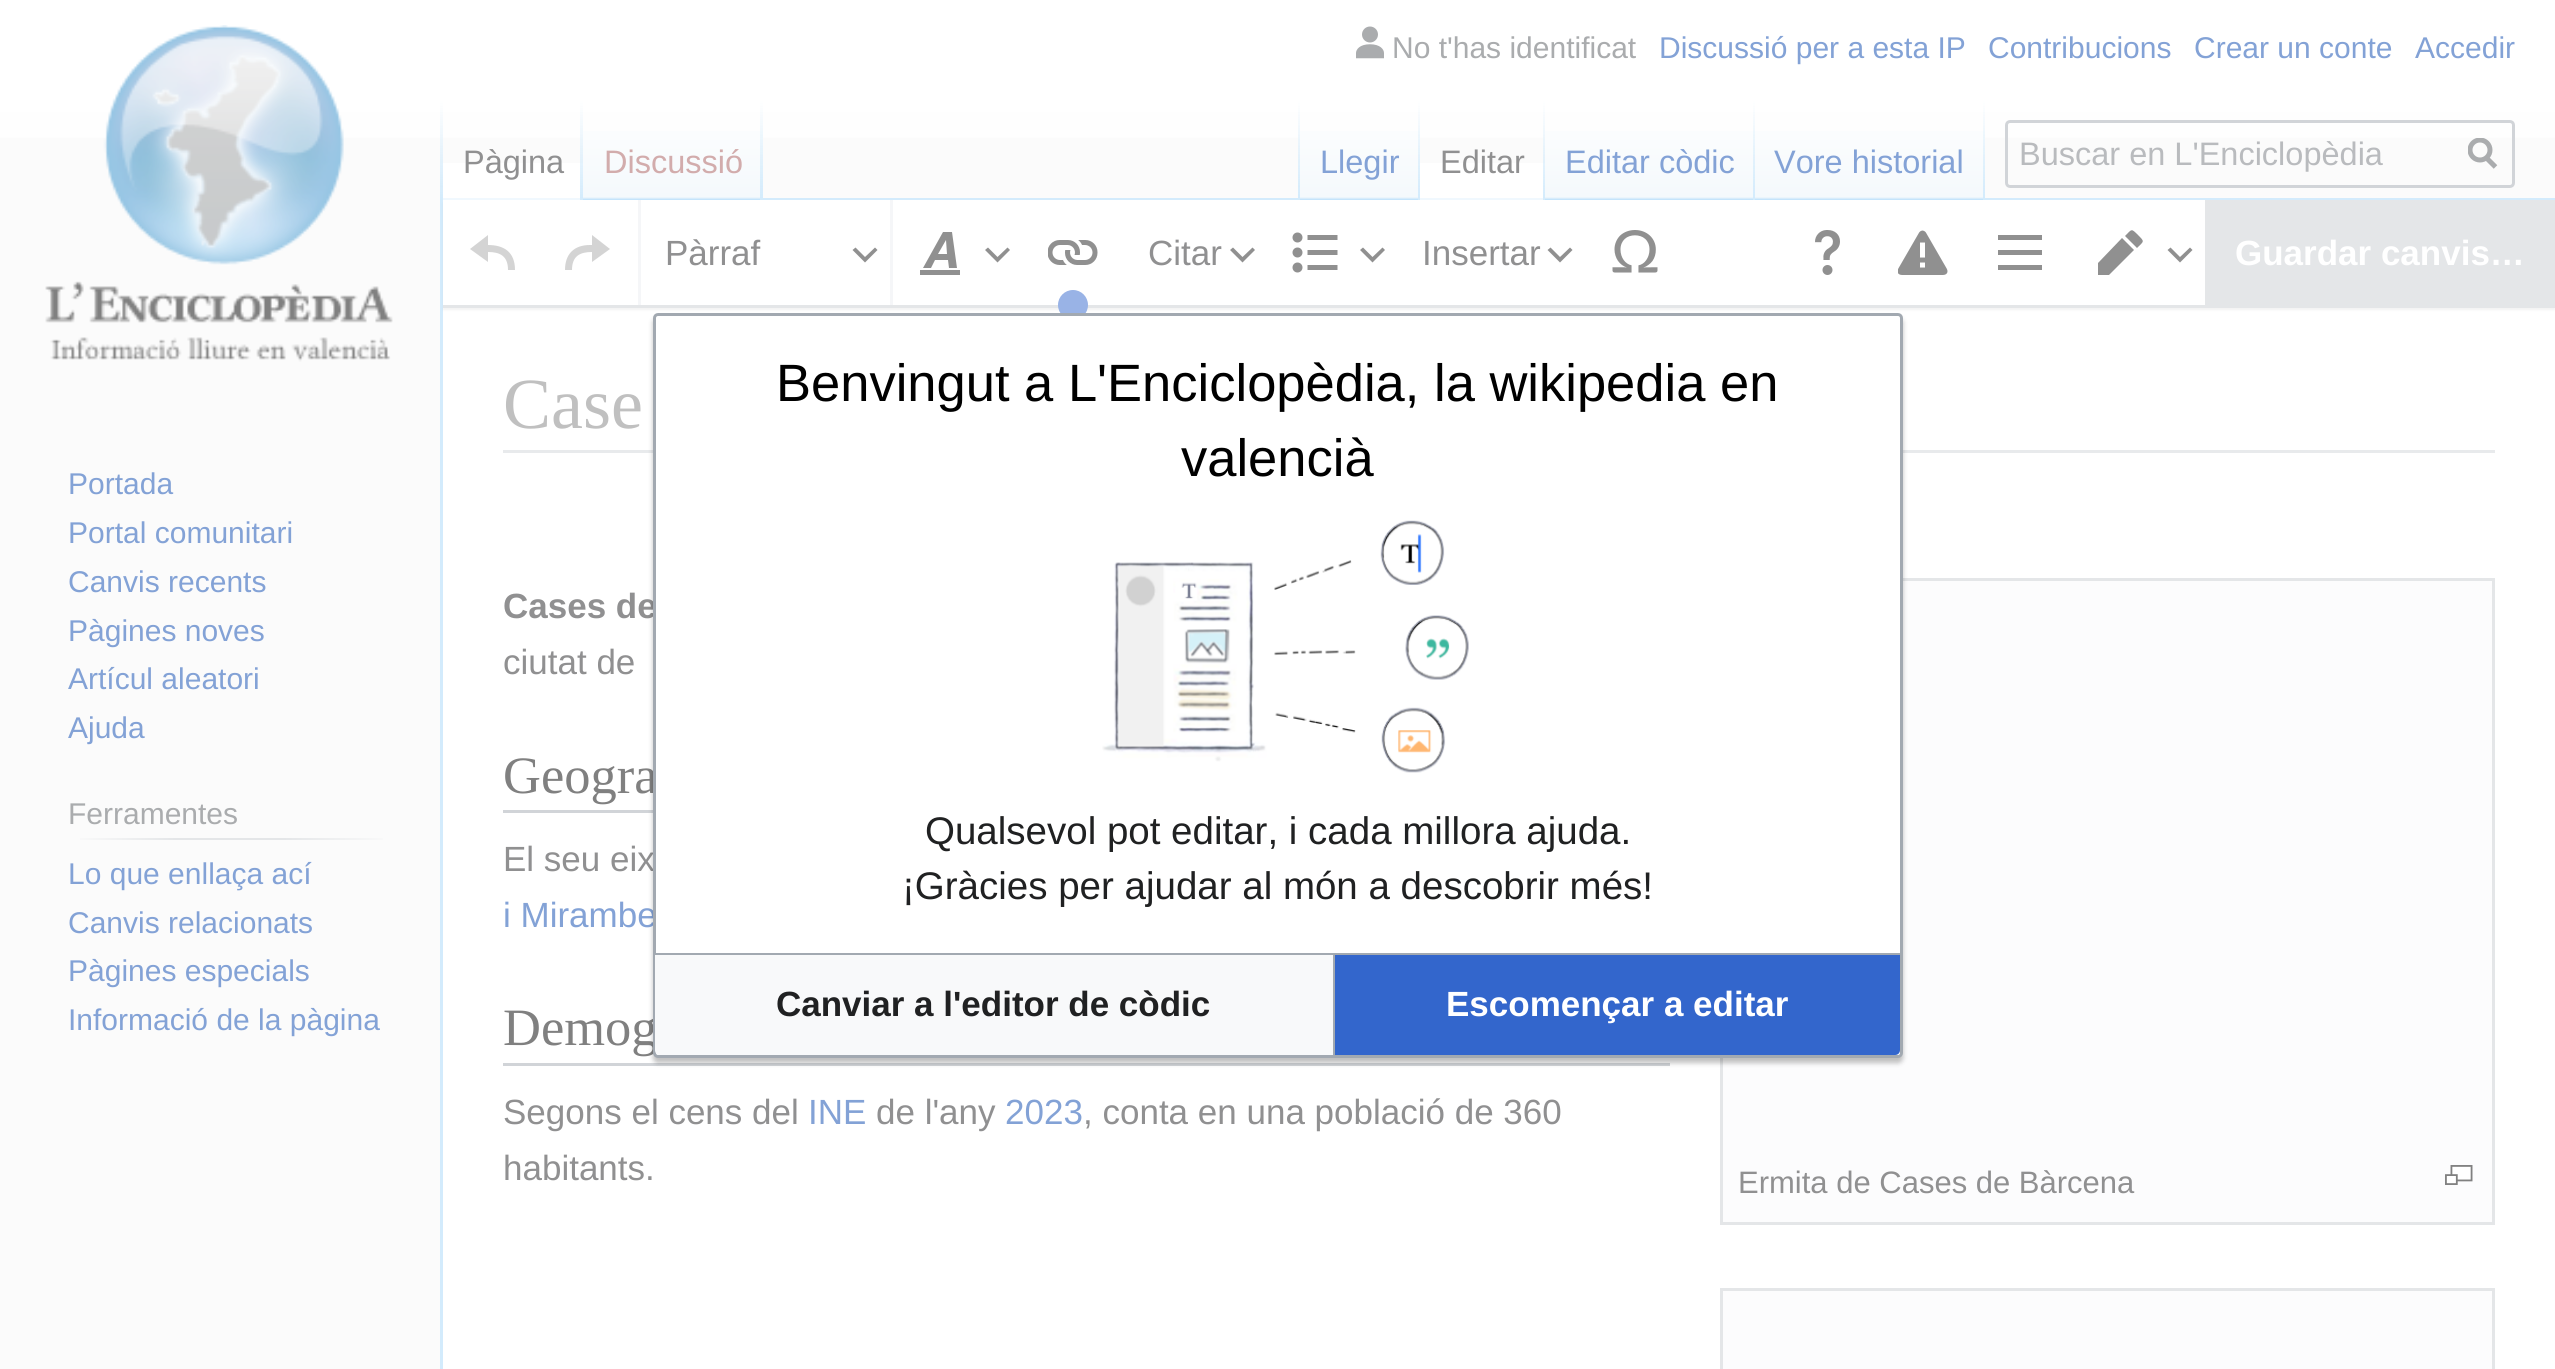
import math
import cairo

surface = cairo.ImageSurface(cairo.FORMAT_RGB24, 2555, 1369)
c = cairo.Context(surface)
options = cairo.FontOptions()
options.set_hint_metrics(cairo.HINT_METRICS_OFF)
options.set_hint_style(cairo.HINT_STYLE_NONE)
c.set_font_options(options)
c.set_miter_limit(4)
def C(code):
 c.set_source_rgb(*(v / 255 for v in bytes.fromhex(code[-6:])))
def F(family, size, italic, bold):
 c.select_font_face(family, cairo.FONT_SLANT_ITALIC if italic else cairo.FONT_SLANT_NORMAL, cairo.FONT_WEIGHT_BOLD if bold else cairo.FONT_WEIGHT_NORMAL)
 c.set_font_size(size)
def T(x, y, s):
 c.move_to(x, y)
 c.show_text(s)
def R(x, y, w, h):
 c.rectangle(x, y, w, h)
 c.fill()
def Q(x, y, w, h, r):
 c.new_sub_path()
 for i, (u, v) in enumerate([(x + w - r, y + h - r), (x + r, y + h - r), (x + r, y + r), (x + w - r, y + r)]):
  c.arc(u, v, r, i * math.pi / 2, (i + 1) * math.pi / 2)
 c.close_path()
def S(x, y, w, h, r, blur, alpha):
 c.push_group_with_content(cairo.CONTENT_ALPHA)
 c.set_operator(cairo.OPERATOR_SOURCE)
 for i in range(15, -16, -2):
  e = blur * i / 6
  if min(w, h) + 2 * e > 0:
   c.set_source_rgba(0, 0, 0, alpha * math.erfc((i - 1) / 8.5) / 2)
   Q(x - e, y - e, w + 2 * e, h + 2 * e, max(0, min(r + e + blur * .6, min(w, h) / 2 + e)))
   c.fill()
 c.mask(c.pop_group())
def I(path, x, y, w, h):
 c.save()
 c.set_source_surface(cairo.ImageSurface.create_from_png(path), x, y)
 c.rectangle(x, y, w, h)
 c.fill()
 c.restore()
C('fbfbfb')
c.paint()
gradient = cairo.LinearGradient(1278,0,1278,200)
gradient.add_color_stop_rgba(.5,1,1,1,1)
gradient.add_color_stop_rgba(1,0.984,0.984,0.984,1)
c.set_source(gradient)
R(0,0,2555,138)
I('1.png',1356,26,28,33)
F('Liberation Sans',30,0,0)
C('aaacae')
T(1392,58,'No t\'has identificat')
C('83a2d6')
T(1659,58,'Discussió per a esta IP')
T(1988,58,'Contribucions')
T(2194,58,'Crear un conte')
T(2415,58,'Accedir')
C('d3ebfc')
R(440,198,3,1171)
gradient = cairo.LinearGradient(441,100,441,200)
gradient.add_color_stop_rgba(0,0.827,0.922,0.988,0)
gradient.add_color_stop_rgba(1,0.827,0.922,0.988,1)
c.set_source(gradient)
R(440,100,3,100)
C('ffffff')
R(443,163,140,35)
C('f0f8fe')
R(443,198,140,2)
gradient = cairo.LinearGradient(581,100,581,200)
gradient.add_color_stop_rgba(0,0.827,0.922,0.988,0)
gradient.add_color_stop_rgba(1,0.827,0.922,0.988,1)
c.set_source(gradient)
R(580,100,3,100)
F('Liberation Sans',32.5,0,0)
C('909091')
T(463,173,'Pàgina')
gradient = cairo.LinearGradient(673,200,673,100)
gradient.add_color_stop_rgba(0,0.733,0.878,0.984,1)
gradient.add_color_stop_rgba(.03,0.957,0.976,0.988,1)
gradient.add_color_stop_rgba(1,1,1,1,1)
c.set_source(gradient)
R(583,131,180,69)
gradient = cairo.LinearGradient(761,100,761,200)
gradient.add_color_stop_rgba(0,0.827,0.922,0.988,0)
gradient.add_color_stop_rgba(1,0.827,0.922,0.988,1)
c.set_source(gradient)
R(760,100,3,100)
C('d2acac')
T(604,173,'Discussió')
C('d3ebfc')
R(763,198,1792,2)
gradient = cairo.LinearGradient(1299,100,1299,200)
gradient.add_color_stop_rgba(0,0.827,0.922,0.988,0)
gradient.add_color_stop_rgba(1,0.827,0.922,0.988,1)
c.set_source(gradient)
R(1298,100,2,100)
gradient = cairo.LinearGradient(1360,200,1360,100)
gradient.add_color_stop_rgba(0,0.733,0.878,0.984,1)
gradient.add_color_stop_rgba(.03,0.957,0.976,0.988,1)
gradient.add_color_stop_rgba(1,1,1,1,1)
c.set_source(gradient)
R(1300,131,120,69)
gradient = cairo.LinearGradient(1419,100,1419,200)
gradient.add_color_stop_rgba(0,0.827,0.922,0.988,0)
gradient.add_color_stop_rgba(1,0.827,0.922,0.988,1)
c.set_source(gradient)
R(1418,100,2,100)
C('83a2d6')
T(1320,173,'Llegir')
C('ffffff')
R(1420,163,125,35)
C('f0f8fe')
R(1420,198,125,2)
gradient = cairo.LinearGradient(1544,100,1544,200)
gradient.add_color_stop_rgba(0,0.827,0.922,0.988,0)
gradient.add_color_stop_rgba(1,0.827,0.922,0.988,1)
c.set_source(gradient)
R(1543,100,2,100)
C('909091')
T(1440,173,'Editar')
gradient = cairo.LinearGradient(1650,200,1650,100)
gradient.add_color_stop_rgba(0,0.733,0.878,0.984,1)
gradient.add_color_stop_rgba(.03,0.957,0.976,0.988,1)
gradient.add_color_stop_rgba(1,1,1,1,1)
c.set_source(gradient)
R(1545,131,210,69)
gradient = cairo.LinearGradient(1754,100,1754,200)
gradient.add_color_stop_rgba(0,0.827,0.922,0.988,0)
gradient.add_color_stop_rgba(1,0.827,0.922,0.988,1)
c.set_source(gradient)
R(1753,100,2,100)
C('83a2d6')
T(1565,173,'Editar còdic')
gradient = cairo.LinearGradient(1870,200,1870,100)
gradient.add_color_stop_rgba(0,0.733,0.878,0.984,1)
gradient.add_color_stop_rgba(.03,0.957,0.976,0.988,1)
gradient.add_color_stop_rgba(1,1,1,1,1)
c.set_source(gradient)
R(1755,131,230,69)
gradient = cairo.LinearGradient(1984,100,1984,200)
gradient.add_color_stop_rgba(0,0.827,0.922,0.988,0)
gradient.add_color_stop_rgba(1,0.827,0.922,0.988,1)
c.set_source(gradient)
R(1983,100,2,100)
C('83a2d6')
T(1774,173,'Vore historial')
Q(2006.5,121.5,507,65,3.5)
C('d1d4d8')
c.set_line_width(3)
c.stroke()
C('b9bbbe')
T(2019,165,'Buscar en L\'Enciclopèdia')
c.new_path()
c.move_to(2495.5,167)
c.line_to(2485.5,157)
C('aaacae')
c.set_line_width(5)
c.stroke()
c.save()
c.rectangle(2468,138,30,32)
c.clip()
c.arc(2480,150,10,0,2 * math.pi)
c.stroke()
c.restore()
I('2.png',45,25,348,337)
F('Liberation Sans',30,0,0)
C('83a2d6')
T(68,494,'Portada')
T(68,543,'Portal comunitari')
T(68,592,'Canvis recents')
T(68,641,'Pàgines noves')
T(68,689,'Artícul aleatori')
T(68,738,'Ajuda')
gradient = cairo.LinearGradient(68,839,395,839)
gradient.add_color_stop_rgba(0,0.984,0.984,0.984,1)
gradient.add_color_stop_rgba(.33,0.894,0.902,0.91,1)
gradient.add_color_stop_rgba(.66,0.894,0.902,0.91,1)
gradient.add_color_stop_rgba(1,0.984,0.984,0.984,1)
c.set_source(gradient)
R(80,838,303,2)
C('aaacae')
T(68,824,'Ferramentes')
C('83a2d6')
T(68,884,'Lo que enllaça ací')
T(68,933,'Canvis relacionats')
T(68,981,'Pàgines especials')
T(68,1030,'Informació de la pàgina')
C('ffffff')
R(443,308,2112,1061)
C('808080')
S(443,203,2112,107,0,1,.1)
C('ffffff')
R(443,200,1762,105)
C('e4e6e8')
R(443,305,2112,3)
C('d4d4d4')
c.new_path()
c.move_to(470,249)
c.line_to(488,262)
c.line_to(488,252)
c.curve_to(500,252,508,256,508,270)
c.line_to(515,270)
c.curve_to(515,252,504,245,488,245)
c.line_to(488,235)
c.close_path()
c.fill()
c.new_path()
c.move_to(610,249)
c.line_to(592,235)
c.line_to(592,262)
c.close_path()
c.move_to(592,245)
c.line_to(592,252)
c.curve_to(580,252,572,256,572,270)
c.line_to(565,270)
c.curve_to(565,254,574,245,590,245)
c.close_path()
c.fill()
C('f5f6f8')
R(890,200,3,105)
R(638,200,3,105)
F('Liberation Sans',35,0,0)
C('909091')
T(665,265,'Pàrraf')
C('909090')
c.new_path()
c.move_to(875,247.5)
c.line_to(865,257)
c.line_to(855.5,247.5)
c.line_to(852.5,250)
c.line_to(865,262.5)
c.line_to(877.5,250)
c.close_path()
c.fill()
c.new_path()
c.move_to(920,270)
c.line_to(960,270)
c.line_to(960,275)
c.line_to(920,275)
c.close_path()
c.move_to(943,232)
c.line_to(952,232)
c.line_to(957,268)
c.line_to(949,268)
c.line_to(948,260)
c.line_to(935,260)
c.line_to(931,268)
c.line_to(923,268)
c.close_path()
c.move_to(938,254)
c.line_to(947,254)
c.line_to(946,240)
c.close_path()
c.fill()
c.new_path()
c.move_to(1007.5,247.5)
c.line_to(997.5,257)
c.line_to(988,247.5)
c.line_to(985,250)
c.line_to(997.5,262.5)
c.line_to(1010,250)
c.close_path()
c.fill()
I('3.png',1048,240,50,25)
C('99b3e6')
c.arc(1073,305,15,0,2 * math.pi)
c.fill()
C('909091')
T(1148,265,'Citar')
C('909090')
c.new_path()
c.move_to(1252.5,247.5)
c.line_to(1242.5,257)
c.line_to(1233,247.5)
c.line_to(1230,250)
c.line_to(1242.5,262.5)
c.line_to(1255,250)
c.close_path()
c.fill()
I('4.png',1292,232,46,41)
c.new_path()
c.move_to(1382.5,247.5)
c.line_to(1372.5,257)
c.line_to(1363,247.5)
c.line_to(1360,250)
c.line_to(1372.5,262.5)
c.line_to(1385,250)
c.close_path()
c.fill()
C('909091')
T(1422,265,'Insertar')
C('909090')
c.new_path()
c.move_to(1570,247.5)
c.line_to(1560,257)
c.line_to(1550.5,247.5)
c.line_to(1547.5,250)
c.line_to(1560,262.5)
c.line_to(1572.5,250)
c.close_path()
c.fill()
I('5.png',1612,230,46,43)
I('6.png',1815,230,25,45)
I('7.png',1898,230,50,45)
c.new_path()
c.move_to(1998,235)
c.line_to(1998,240)
c.line_to(2042,240)
c.line_to(2042,235)
c.close_path()
c.move_to(1998,255)
c.line_to(2042,255)
c.line_to(2042,250)
c.line_to(1998,250)
c.close_path()
c.move_to(1998,270)
c.line_to(2042,270)
c.line_to(2042,265)
c.line_to(1998,265)
c.close_path()
c.fill()
c.new_path()
c.move_to(2137,248)
c.curve_to(2144,241,2145,242,2138,235)
c.curve_to(2131,228,2132,229,2125,236)
c.close_path()
c.move_to(2098,263)
c.line_to(2098,275)
c.line_to(2109,275)
c.line_to(2134,250)
c.line_to(2122,238)
c.close_path()
c.fill()
c.new_path()
c.move_to(2190,247.5)
c.line_to(2180,257)
c.line_to(2170.5,247.5)
c.line_to(2167.5,250)
c.line_to(2180,262.5)
c.line_to(2192.5,250)
c.close_path()
c.fill()
C('e4e6e8')
R(2205,200,350,105)
F('Liberation Sans',35,0,1)
C('ffffff')
T(2235,265,'Guardar canvis…')
C('e8eaec')
R(503,450,1992,3)
F('Liberation Serif',72,0,0)
C('c0c0c0')
T(503,428,'Case')
F('Liberation Sans',35,0,1)
C('909091')
T(503,618,'Cases de')
F('Liberation Sans',35,0,0)
T(503,674,'ciutat de')
C('d1d4d8')
R(503,810,150,3)
F('Liberation Serif',52.5,0,0)
C('808080')
T(503,793,'Geogra')
F('Liberation Sans',35,0,0)
C('909091')
T(503,871,'El seu eix')
C('83a2d6')
T(503,927,'i Mirambe')
C('d1d4d8')
R(503,1063,1167,3)
F('Liberation Serif',52.5,0,0)
C('808080')
T(503,1045,'Demog')
F('Liberation Sans',35,0,0)
C('909091')
T(503,1124,'Segons el cens del')
C('83a2d6')
T(808,1124,'INE')
C('909091')
T(876,1124,'de l\'any')
C('83a2d6')
T(1005,1124,'2023')
C('909091')
T(1083,1124,', conta en una població de 360')
T(503,1180,'habitants.')
C('fcfcfd')
c.rectangle(1721.5,579.5,772,644)
c.fill_preserve()
C('e4e6e8')
c.set_line_width(3)
c.stroke()
F('Liberation Sans',31,0,0)
C('909091')
T(1738,1193,'Ermita de Cases de Bàrcena')
I('8.png',2445,1165,28,20)
C('fcfcfd')
c.rectangle(1721.5,1289.5,772,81)
c.fill_preserve()
C('e4e6e8')
c.stroke()
C('000000')
S(653,318,1250,745,5,2.5,.25)
C('ffffff')
Q(654.5,314.5,1247,742,3.5)
c.fill_preserve()
C('a2a9b1')
c.stroke()
F('Liberation Sans',52.5,0,0)
C('000000')
T(776,401,'Benvingut a L\'Enciclopèdia, la wikipedia en')
T(1181,476,'valencià')
I('9.png',1102,520,367,253)
F('Liberation Sans',38.5,0,0)
C('202122')
T(925,844,'Qualsevol pot editar, i cada millora ajuda.')
T(902,899,'¡Gràcies per ajudar al món a descobrir més!')
c.save()
c.rectangle(655,315,1245,740)
c.clip()
c.rectangle(654.5,954.5,1247,102)
C('a2a9b1')
c.stroke()
c.restore()
C('a2a9b1')
R(1333,955,2,100)
C('f8f9fa')
c.new_path()
c.move_to(655,955)
c.line_to(1333,955)
c.line_to(1333,1055)
c.line_to(660,1055)
c.curve_to(657,1055,655,1053,655,1050)
c.close_path()
c.fill()
F('Liberation Sans',35,0,1)
C('202122')
T(776,1016,'Canviar a l\'editor de còdic')
C('3366cc')
c.new_path()
c.move_to(1335,955)
c.line_to(1900,955)
c.line_to(1900,1050)
c.curve_to(1900,1053,1898,1055,1895,1055)
c.line_to(1335,1055)
c.close_path()
c.fill()
C('ffffff')
T(1446,1016,'Escomençar a editar')
surface.write_to_png('o.png')
